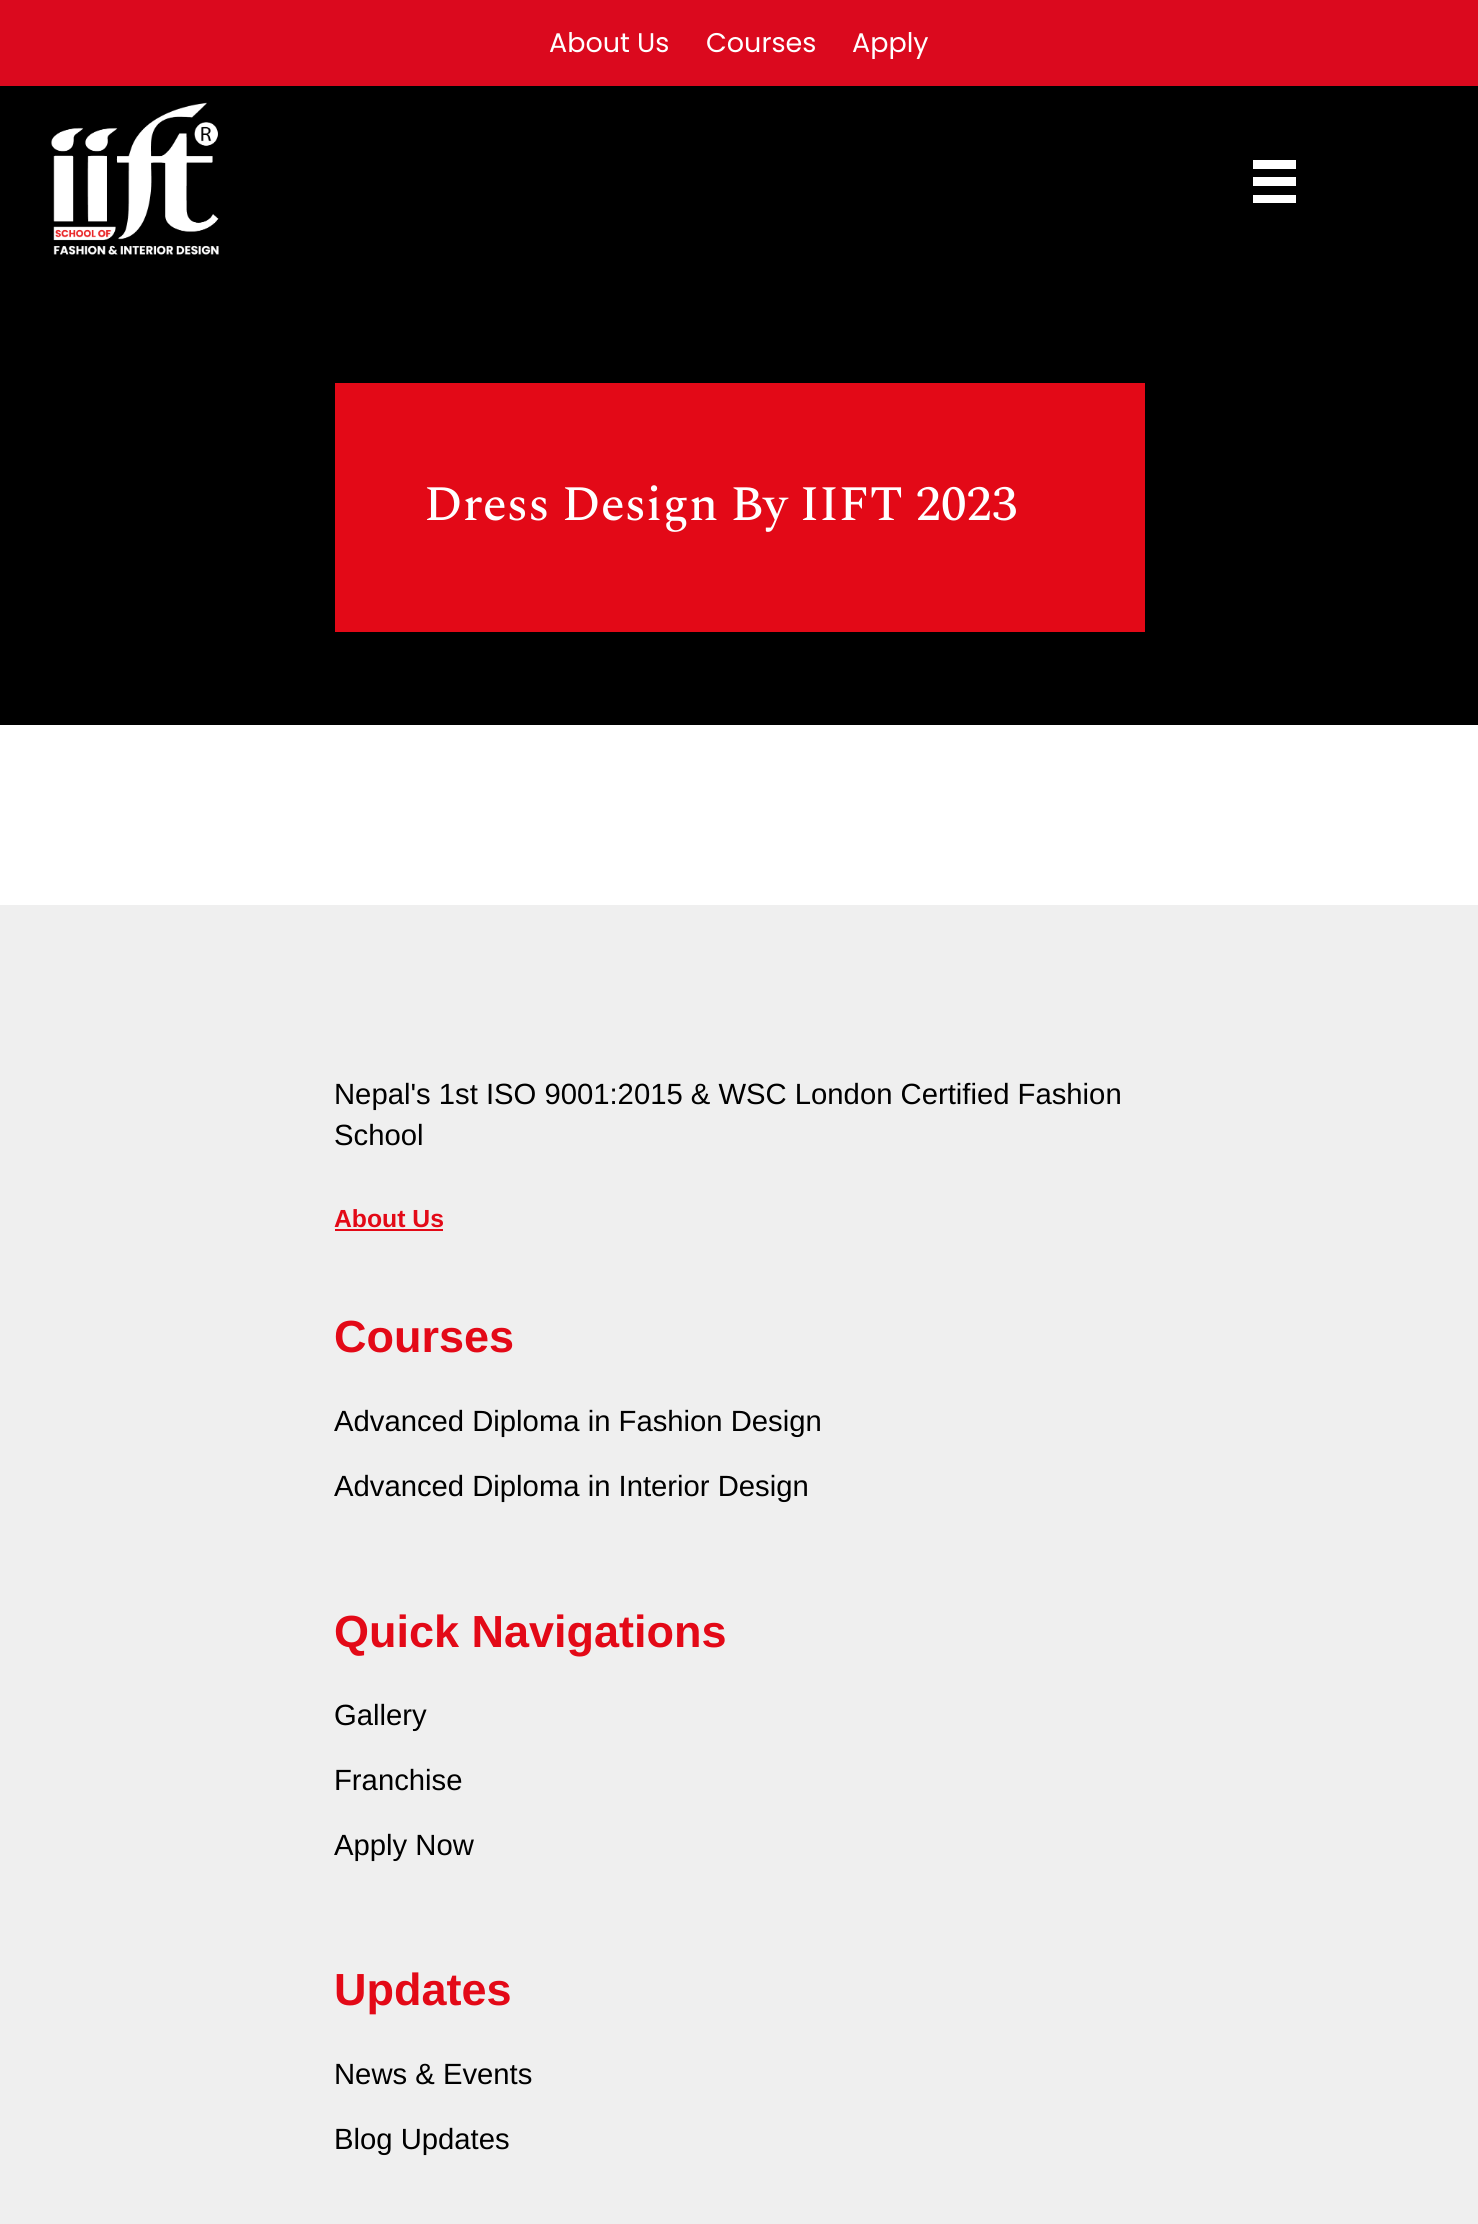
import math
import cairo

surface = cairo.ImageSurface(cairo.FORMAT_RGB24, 1478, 2224)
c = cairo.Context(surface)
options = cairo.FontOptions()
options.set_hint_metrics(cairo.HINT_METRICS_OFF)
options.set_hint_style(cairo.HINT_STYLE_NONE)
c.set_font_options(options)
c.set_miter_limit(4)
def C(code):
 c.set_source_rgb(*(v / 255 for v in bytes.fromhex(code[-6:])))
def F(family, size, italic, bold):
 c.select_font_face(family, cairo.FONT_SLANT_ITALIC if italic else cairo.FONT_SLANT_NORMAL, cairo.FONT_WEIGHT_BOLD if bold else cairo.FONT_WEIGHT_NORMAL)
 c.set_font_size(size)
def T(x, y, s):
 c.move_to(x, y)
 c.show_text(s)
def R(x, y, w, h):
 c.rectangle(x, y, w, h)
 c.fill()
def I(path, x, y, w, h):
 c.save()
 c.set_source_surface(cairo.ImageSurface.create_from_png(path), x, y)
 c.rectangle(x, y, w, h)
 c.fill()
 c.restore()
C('ffffff')
c.paint()
C('db091e')
R(0,0,1478,86)
F('Poppins',27,0,0)
C('ffffff')
T(549,52,'About Us')
T(706,52,'Courses')
T(852,52,'Apply')
C('000000')
R(0,86,1478,639)
I('1.png',51,102,168,153)
C('ffffff')
R(1253,160,43,9)
R(1253,177,43,9)
R(1253,195,43,8)
C('e30917')
R(335,383,810,249)
F('Spectral Medium',49.5,0,0)
C('ffffff')
T(424,520,'Dress Design By IIFT 2023')
C('efefef')
R(0,905,1478,1319)
F('Liberation Sans',29.25,0,0)
C('000000')
T(334,1104,'Nepal\'s 1st ISO 9001:2015 & WSC London Certified Fashion')
T(334,1145,'School')
F('Liberation Sans',24.75,0,1)
C('e30917')
T(334,1227,'About Us')
R(335,1229,108,2)
F('Liberation Sans',45,0,1)
T(334,1352,'Courses')
F('Liberation Sans',29.25,0,0)
C('000000')
T(334,1431,'Advanced Diploma in Fashion Design')
T(334,1496,'Advanced Diploma in Interior Design')
F('Liberation Sans',45,0,1)
C('e30917')
T(334,1647,'Quick Navigations')
F('Liberation Sans',29.25,0,0)
C('000000')
T(334,1725,'Gallery')
T(334,1790,'Franchise')
T(334,1855,'Apply Now')
F('Liberation Sans',45,0,1)
C('e30917')
T(334,2005,'Updates')
F('Liberation Sans',29.25,0,0)
C('000000')
T(334,2084,'News & Events')
T(334,2149,'Blog Updates')
surface.write_to_png('o.png')
